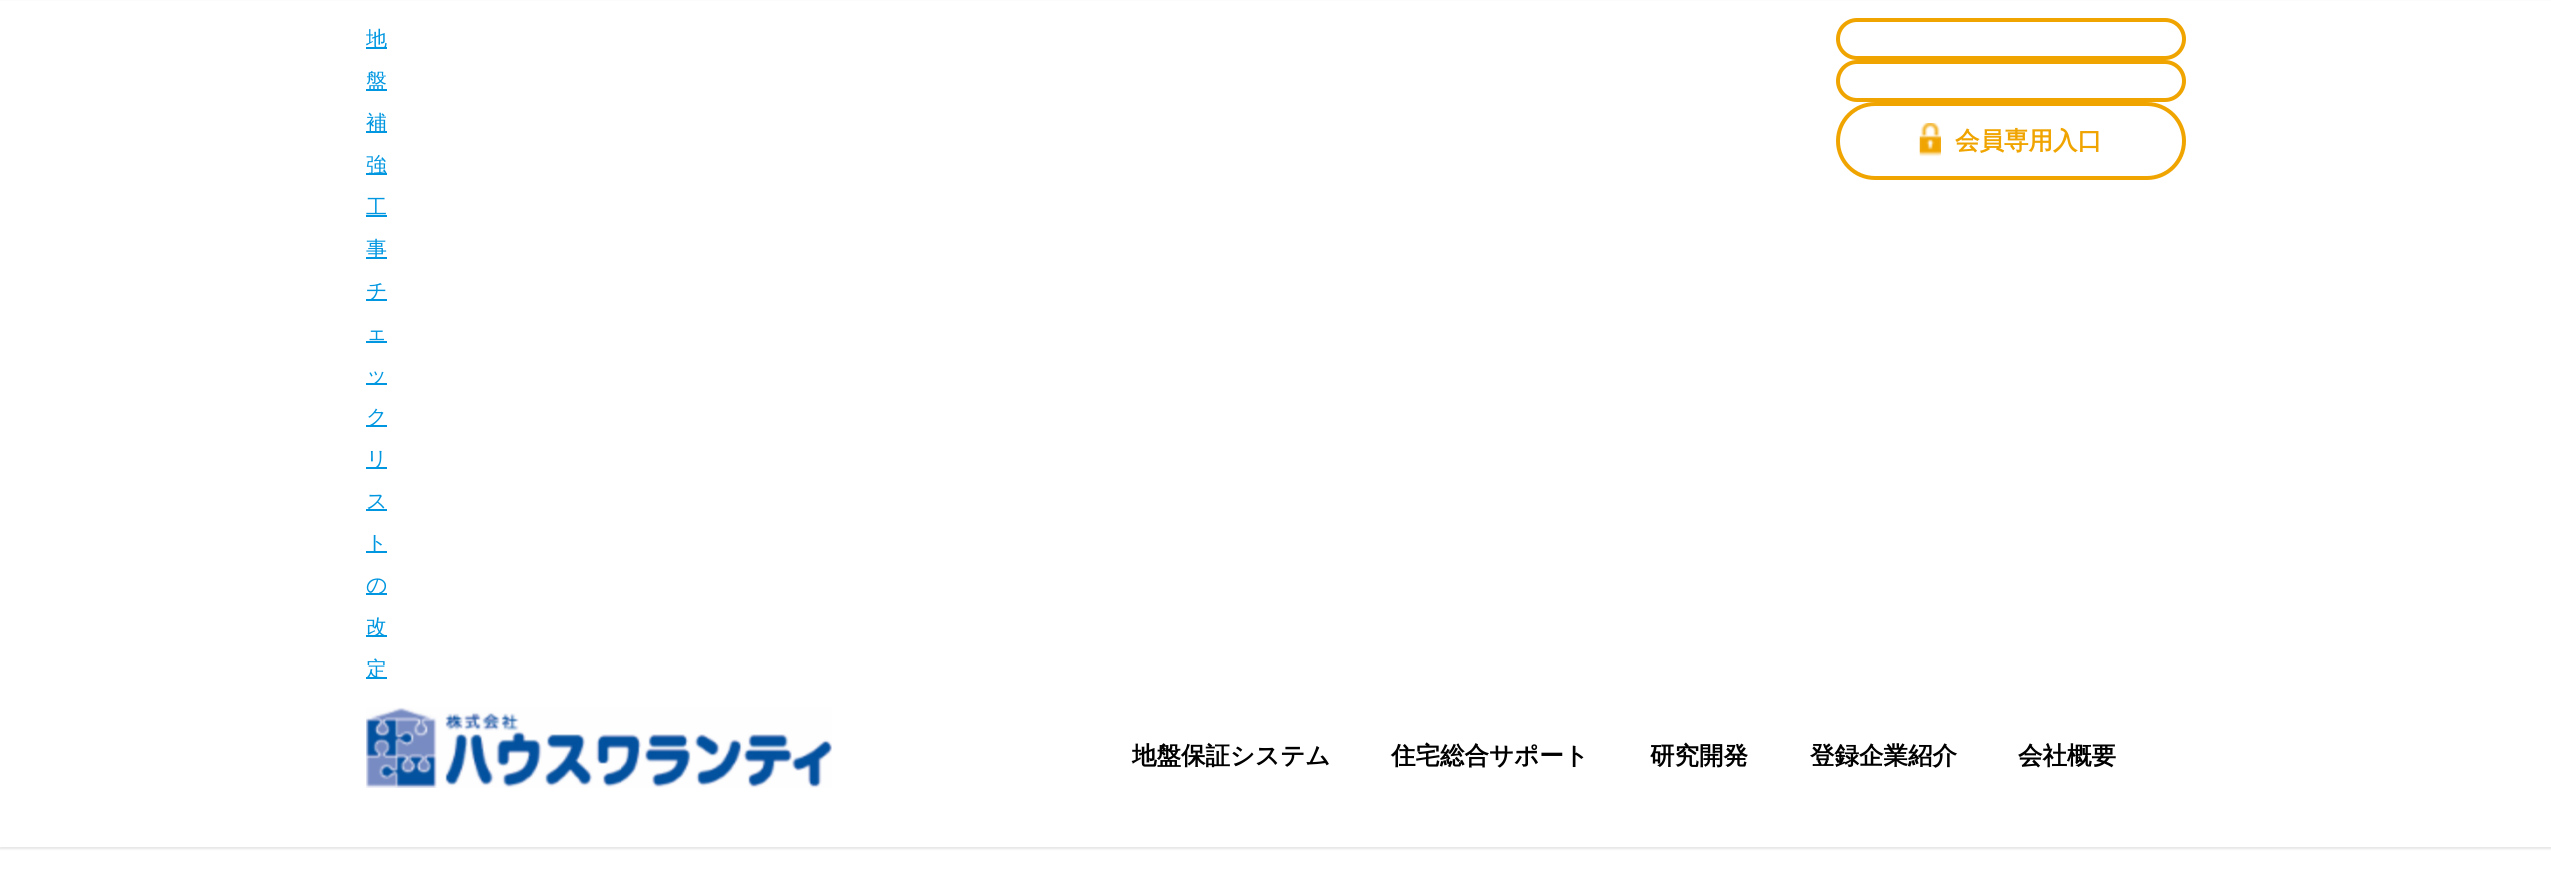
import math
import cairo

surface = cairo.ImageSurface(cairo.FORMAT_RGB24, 2551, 872)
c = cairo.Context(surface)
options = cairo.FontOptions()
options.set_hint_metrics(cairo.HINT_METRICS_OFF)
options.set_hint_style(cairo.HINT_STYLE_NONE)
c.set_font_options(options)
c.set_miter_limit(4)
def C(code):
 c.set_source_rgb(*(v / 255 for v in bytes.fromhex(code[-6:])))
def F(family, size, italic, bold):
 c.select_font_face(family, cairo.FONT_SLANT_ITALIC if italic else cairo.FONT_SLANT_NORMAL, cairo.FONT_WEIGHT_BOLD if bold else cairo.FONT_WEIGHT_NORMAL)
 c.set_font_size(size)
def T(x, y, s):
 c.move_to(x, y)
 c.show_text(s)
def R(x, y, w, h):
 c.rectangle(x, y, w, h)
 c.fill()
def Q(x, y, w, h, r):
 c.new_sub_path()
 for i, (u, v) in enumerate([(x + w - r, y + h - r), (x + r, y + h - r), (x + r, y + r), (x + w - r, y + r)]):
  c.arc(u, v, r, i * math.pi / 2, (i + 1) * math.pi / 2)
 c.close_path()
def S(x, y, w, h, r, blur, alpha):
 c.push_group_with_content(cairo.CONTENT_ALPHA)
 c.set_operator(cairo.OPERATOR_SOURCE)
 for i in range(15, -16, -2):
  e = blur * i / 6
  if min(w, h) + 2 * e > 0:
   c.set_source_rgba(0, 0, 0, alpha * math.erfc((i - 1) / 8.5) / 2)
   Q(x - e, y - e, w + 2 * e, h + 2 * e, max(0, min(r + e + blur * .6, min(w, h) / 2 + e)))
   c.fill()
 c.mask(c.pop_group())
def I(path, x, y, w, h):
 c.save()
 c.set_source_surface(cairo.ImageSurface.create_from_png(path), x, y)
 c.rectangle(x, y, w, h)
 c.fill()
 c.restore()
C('ffffff')
c.paint()
C('000000')
S(0,2,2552,847,0,1,.1)
C('ffffff')
R(0,1,2551,846)
C('0096e0')
R(366,47,21,2)
F('WenQuanYi Zen Hei Medium',21,0,0)
T(366,46,'地')
R(366,89,21,2)
T(366,88,'盤')
R(366,131,21,2)
T(366,130,'補')
R(366,173,21,2)
T(366,172,'強')
T(366,214,'工')
R(366,215,21,2)
R(366,257,21,2)
T(366,256,'事')
R(366,299,21,2)
T(366,298,'チ')
T(366,340,'ェ')
R(366,341,21,2)
R(366,383,21,2)
T(366,382,'ッ')
R(366,425,21,2)
T(366,424,'ク')
R(366,467,21,2)
T(366,466,'リ')
R(366,509,21,2)
T(366,508,'ス')
R(366,551,21,2)
T(366,550,'ト')
R(366,593,21,2)
T(366,592,'の')
R(366,635,21,2)
T(366,634,'改')
R(366,677,21,2)
T(366,676,'定')
Q(1838,20,346,38,19)
C('f0a400')
c.set_line_width(4)
c.stroke()
Q(1838,62,346,38,19)
c.stroke()
Q(1838,104,346,74,37)
c.stroke()
I('1.png',1919,123,22,34)
F('WenQuanYi Zen Hei',24.5,0,1)
T(1955,149,'会員専用入口')
I('2.png',366,707,466,81)
C('000000')
T(1132,764,'地盤保証システム')
T(1391,764,'住宅総合サポート')
T(1650,764,'研究開発')
T(1810,764,'登録企業紹介')
T(2018,764,'会社概要')
surface.write_to_png('o.png')
